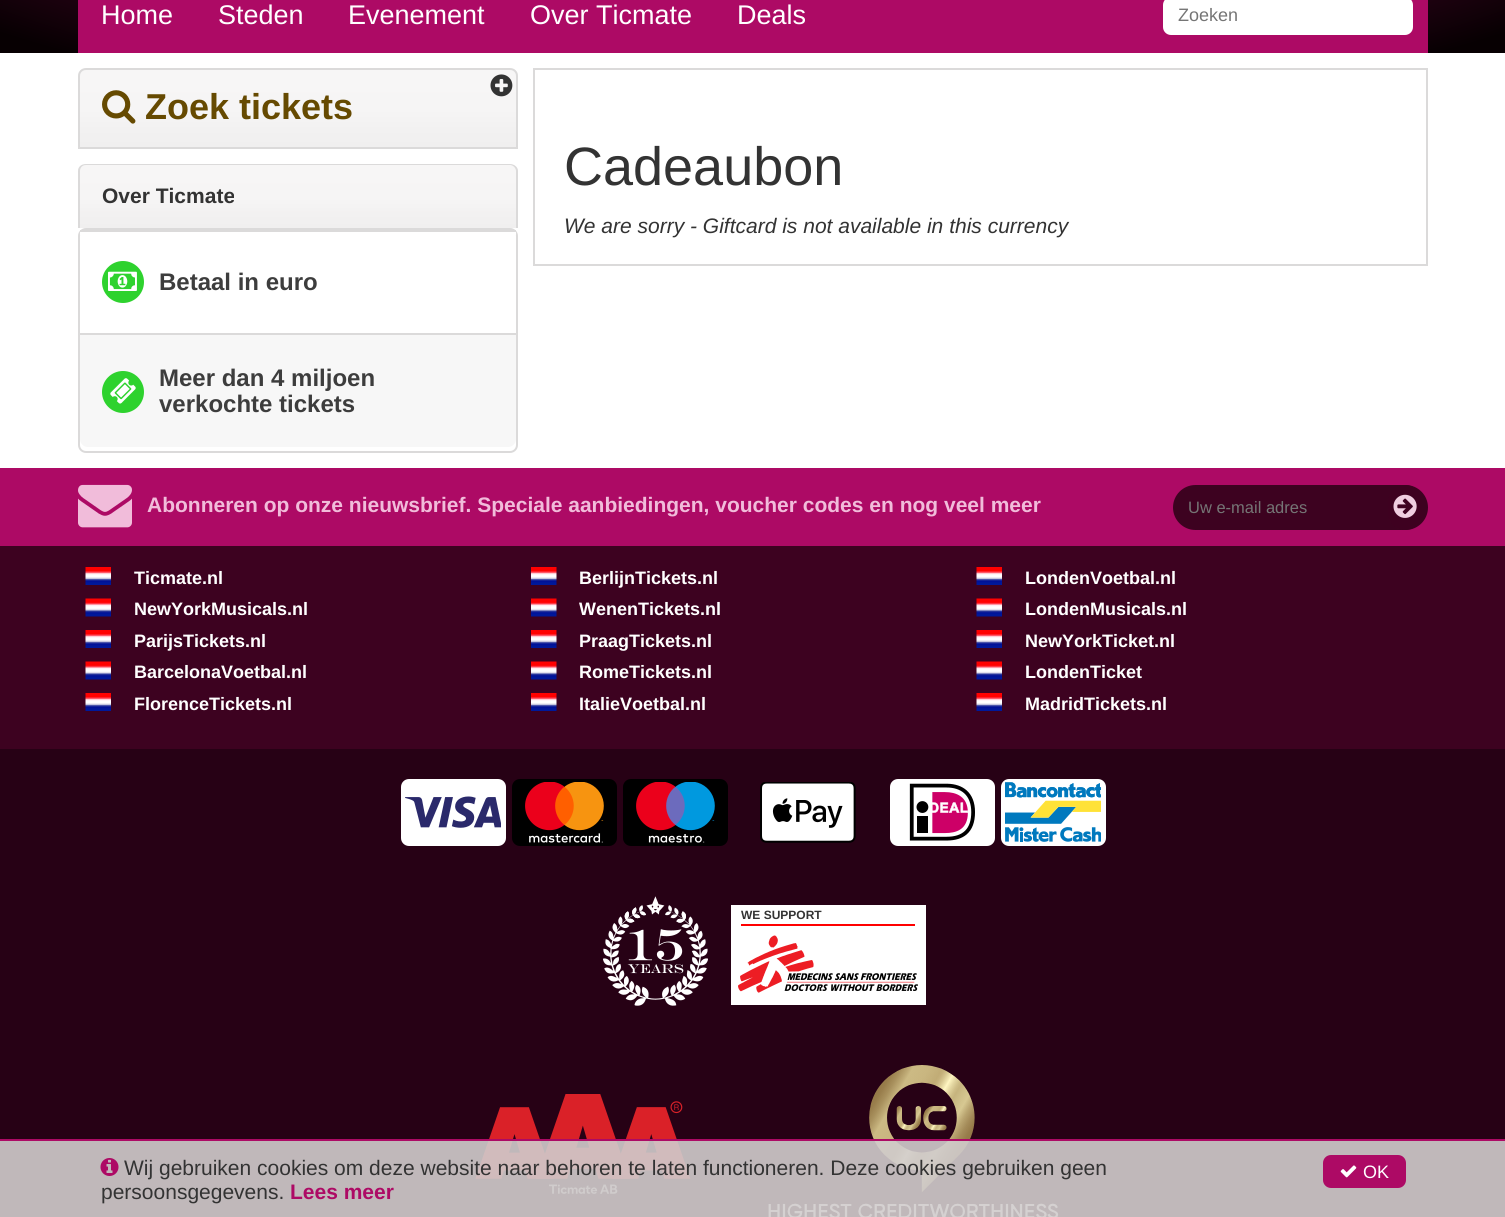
import math
import cairo

surface = cairo.ImageSurface(cairo.FORMAT_RGB24, 1505, 1217)
c = cairo.Context(surface)
options = cairo.FontOptions()
options.set_hint_metrics(cairo.HINT_METRICS_OFF)
options.set_hint_style(cairo.HINT_STYLE_NONE)
c.set_font_options(options)
c.set_miter_limit(4)
def C(code):
 c.set_source_rgb(*(v / 255 for v in bytes.fromhex(code[-6:])))
def F(family, size, italic, bold):
 c.select_font_face(family, cairo.FONT_SLANT_ITALIC if italic else cairo.FONT_SLANT_NORMAL, cairo.FONT_WEIGHT_BOLD if bold else cairo.FONT_WEIGHT_NORMAL)
 c.set_font_size(size)
def T(x, y, s):
 c.move_to(x, y)
 c.show_text(s)
def R(x, y, w, h):
 c.rectangle(x, y, w, h)
 c.fill()
def Q(x, y, w, h, r):
 c.new_sub_path()
 for i, (u, v) in enumerate([(x + w - r, y + h - r), (x + r, y + h - r), (x + r, y + r), (x + w - r, y + r)]):
  c.arc(u, v, r, i * math.pi / 2, (i + 1) * math.pi / 2)
 c.close_path()
def I(path, x, y, w, h):
 c.save()
 c.set_source_surface(cairo.ImageSurface.create_from_png(path), x, y)
 c.rectangle(x, y, w, h)
 c.fill()
 c.restore()
C('ffffff')
c.paint()
gradient = cairo.RadialGradient(0,0,0,0,0,1)
gradient.set_matrix(cairo.Matrix(1 / 1065, 0, 0, 1 / 308, -1 * 753 / 1065, -1 * -165 / 308))
gradient.add_color_stop_rgba(.16,0.565,0.031,0.329,1)
gradient.add_color_stop_rgba(.96,0.027,0,0.008,1)
c.set_source(gradient)
R(0,0,1505,53)
C('ad0a65')
R(78,0,1350,53)
F('Liberation Sans',27,0,0)
C('ffffff')
T(101,24,'Home')
T(218,24,'Steden')
T(348,24,'Evenement')
T(530,24,'Over Ticmate')
T(737,24,'Deals')
Q(1163,-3,250,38,8)
c.fill()
F('Liberation Sans',18,0,0)
C('757575')
T(1178,21,'Zoeken')
c.save()
c.new_path()
c.move_to(86,68)
c.line_to(510,68)
c.curve_to(514.5,68,518,71.5,518,76)
c.line_to(518,149)
c.line_to(78,149)
c.line_to(78,76)
c.curve_to(78,71.5,81.5,68,86,68)
c.close_path()
c.clip()
gradient = cairo.LinearGradient(298,69,298,147)
gradient.add_color_stop_rgba(0,0.969,0.965,0.965,1)
gradient.add_color_stop_rgba(.52,0.965,0.961,0.961,1)
gradient.add_color_stop_rgba(.77,0.949,0.945,0.945,1)
gradient.add_color_stop_rgba(1,0.941,0.937,0.937,1)
c.set_source(gradient)
R(78,69,440,78)
c.restore()
c.new_path()
c.move_to(86,69)
c.line_to(510,69)
c.curve_to(514,69,517,72,517,76)
c.line_to(517,148)
c.line_to(79,148)
c.line_to(79,76)
c.curve_to(79,72,82,69,86,69)
c.close_path()
C('dbdada')
c.stroke()
I('1.png',490,74,23,23)
I('2.png',102,90,34,34)
F('Liberation Sans',36,0,1)
C('664a01')
T(145,119,'Zoek tickets')
c.save()
c.new_path()
c.move_to(86,164)
c.line_to(510,164)
c.curve_to(514.5,164,518,167.5,518,172)
c.line_to(518,228)
c.line_to(78,228)
c.line_to(78,172)
c.curve_to(78,167.5,81.5,164,86,164)
c.close_path()
c.clip()
gradient = cairo.LinearGradient(298,165,298,228)
gradient.add_color_stop_rgba(0,0.969,0.965,0.965,1)
gradient.add_color_stop_rgba(.52,0.965,0.961,0.961,1)
gradient.add_color_stop_rgba(.77,0.949,0.945,0.945,1)
gradient.add_color_stop_rgba(1,0.941,0.937,0.937,1)
c.set_source(gradient)
R(78,165,440,63)
c.restore()
C('dbdada')
c.set_fill_rule(cairo.FILL_RULE_EVEN_ODD)
c.new_path()
c.move_to(86,164)
c.line_to(510,164)
c.curve_to(514,164,518,167,518,171)
c.line_to(518,228)
c.line_to(78,228)
c.line_to(78,171)
c.curve_to(78,167,81,164,86,164)
c.close_path()
c.move_to(86,165)
c.line_to(510,165)
c.curve_to(513,165,516,168,516,171)
c.line_to(516,228)
c.line_to(80,228)
c.line_to(80,171)
c.curve_to(80,168,82,165,86,165)
c.close_path()
c.fill()
F('Liberation Sans',21,0,1)
C('333333')
T(102,203,'Over Ticmate')
Q(79,229,438,223,7)
C('dbdada')
c.stroke()
C('ffffff')
R(80,232,436,3)
C('dbdada')
R(80,230,436,2)
C('2ed22e')
c.arc(123,282,21,0,2 * math.pi)
c.fill()
I('3.png',108,271,29,20)
F('Liberation Sans',24,0,1)
C('3d3d3d')
T(159,290,'Betaal in euro')
C('f7f7f7')
c.new_path()
c.move_to(80,333)
c.line_to(516,333)
c.line_to(516,439)
c.curve_to(516,443.5,512.5,447,508,447)
c.line_to(88,447)
c.curve_to(83.5,447,80,443.5,80,439)
c.close_path()
c.fill()
C('dbdada')
R(80,333,436,2)
C('2ed22e')
c.arc(123,392,21,0,2 * math.pi)
c.fill()
I('4.png',110,378,26,26)
C('3d3d3d')
T(159,386,'Meer dan 4 miljoen')
T(159,412,'verkochte tickets')
c.rectangle(534,69,893,196)
C('dbdada')
c.stroke()
F('Liberation Sans',54,0,0)
C('333333')
T(564,185,'Cadeaubon')
F('Liberation Sans',21,1,0)
T(564,233,'We are sorry - Giftcard is not available in this currency')
C('ad0a65')
R(0,468,1505,78)
I('5.png',78,484,54,44)
F('Liberation Sans',21,0,1)
C('f1bcda')
T(147,512,'Abonneren op onze nieuwsbrief. Speciale aanbiedingen, voucher codes en nog veel meer')
C('3d0220')
Q(1173,485,255,45,22.5)
c.fill()
F('Liberation Sans',16.5,0,0)
C('757575')
T(1188,513,'Uw e-mail adres')
C('3e0120')
Q(1388,485,34,45,17)
c.fill()
I('6.png',1393,494,24,24)
C('3d0220')
R(0,546,1505,203)
I('7.png',85,567,26,18)
F('Liberation Sans',18,0,1)
C('ffffff')
T(134,584,'Ticmate.nl')
I('8.png',531,567,26,18)
T(579,584,'BerlijnTickets.nl')
I('7.png',976,567,26,18)
T(1025,584,'LondenVoetbal.nl')
I('9.png',85,598,26,19)
T(134,615,'NewYorkMusicals.nl')
I('10.png',531,598,26,19)
T(579,615,'WenenTickets.nl')
I('9.png',976,598,26,19)
T(1025,615,'LondenMusicals.nl')
I('7.png',85,630,26,18)
T(134,647,'ParijsTickets.nl')
I('8.png',531,630,26,18)
T(579,647,'PraagTickets.nl')
I('7.png',976,630,26,18)
T(1025,647,'NewYorkTicket.nl')
I('9.png',85,661,26,19)
T(134,678,'BarcelonaVoetbal.nl')
I('10.png',531,661,26,19)
T(579,678,'RomeTickets.nl')
I('9.png',976,661,26,19)
T(1025,678,'LondenTicket')
I('7.png',85,693,26,18)
T(134,710,'FlorenceTickets.nl')
I('8.png',531,693,26,18)
T(579,710,'ItalieVoetbal.nl')
I('7.png',976,693,26,18)
T(1025,710,'MadridTickets.nl')
C('270115')
R(0,749,1505,468)
C('ffffff')
Q(401,779,105,67,8)
c.fill()
I('11.png',405,796,96,32)
C('000000')
Q(512,779,105,67,8)
c.fill()
I('12.png',525,782,79,61)
Q(623,779,105,67,8)
c.fill()
I('13.png',636,782,79,61)
I('14.png',760,782,96,61)
C('ffffff')
Q(890,779,105,67,8)
c.fill()
I('15.png',909,783,66,58)
Q(1001,779,105,67,8)
c.fill()
I('16.png',1005,782,96,60)
I('17.png',603,896,105,110)
R(731,905,195,100)
C('ff0000')
R(741,924,174,2)
F('Liberation Sans',12,0,1)
C('333333')
T(741,919,'WE SUPPORT')
I('18.png',738,935,180,58)
I('19.png',475,1094,216,100)
I('20.png',768,1065,291,152)
c.set_source_rgba(0.816,0.8,0.8,0.9)
R(0,1141,1505,76)
C('ad0a65')
R(0,1139,1505,2)
I('21.png',100,1158,19,18)
F('Liberation Sans',21,0,0)
C('333333')
T(124,1175,'Wij gebruiken cookies om deze website naar behoren te laten functioneren. Deze cookies gebruiken geen')
C('ad0a65')
Q(1324,1156,81,31,7)
c.fill_preserve()
c.stroke()
I('22.png',1340,1165,17,13)
F('Liberation Sans',18,0,0)
C('ffffff')
T(1363,1178,'OK')
F('Liberation Sans',21,0,0)
C('333333')
T(101,1199,'persoonsgegevens.')
F('Liberation Sans',21,0,1)
C('ad0a65')
T(290,1199,'Lees meer')
surface.write_to_png('o.png')
